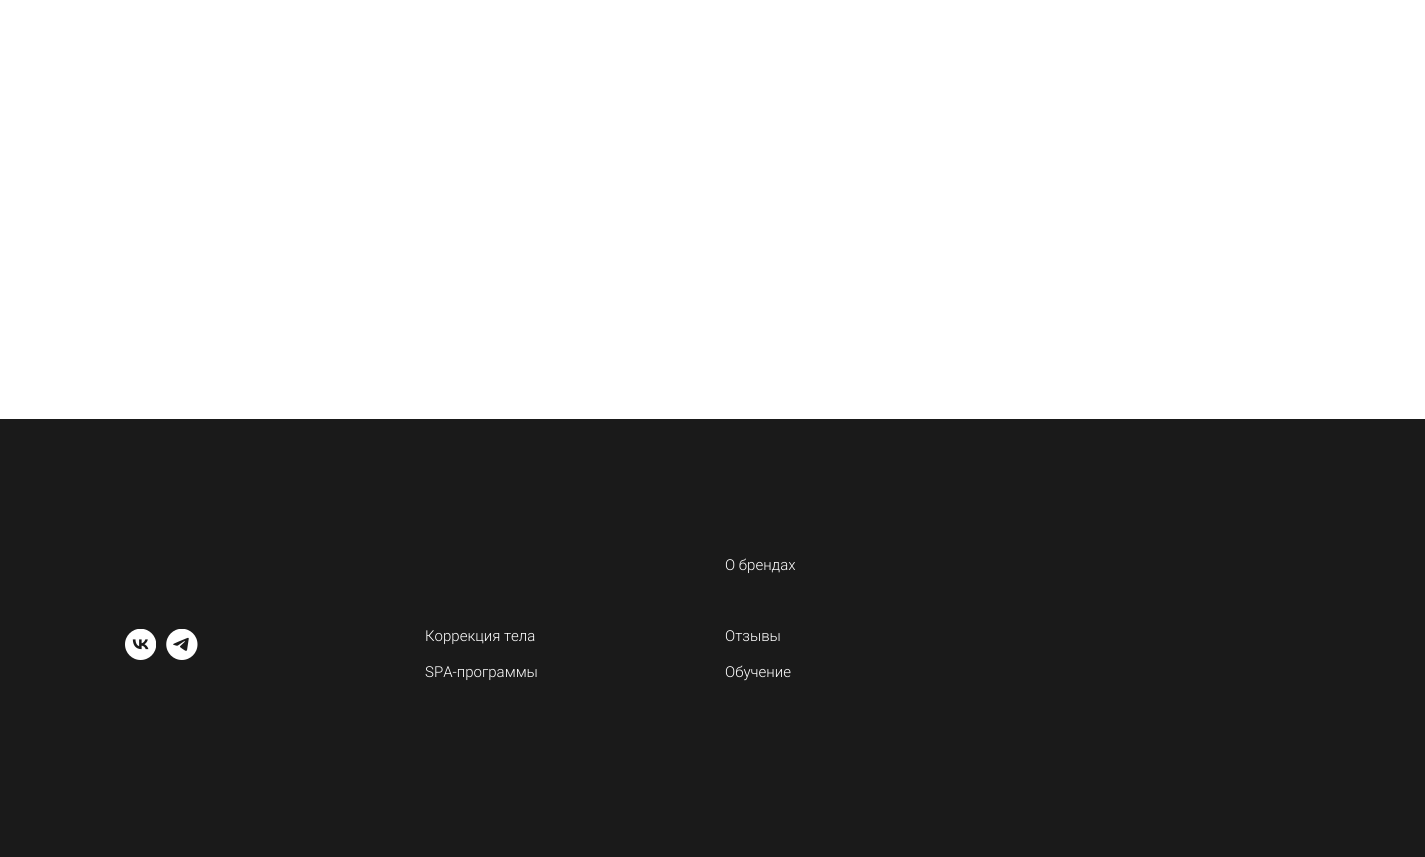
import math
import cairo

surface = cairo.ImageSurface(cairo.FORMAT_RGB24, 1425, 857)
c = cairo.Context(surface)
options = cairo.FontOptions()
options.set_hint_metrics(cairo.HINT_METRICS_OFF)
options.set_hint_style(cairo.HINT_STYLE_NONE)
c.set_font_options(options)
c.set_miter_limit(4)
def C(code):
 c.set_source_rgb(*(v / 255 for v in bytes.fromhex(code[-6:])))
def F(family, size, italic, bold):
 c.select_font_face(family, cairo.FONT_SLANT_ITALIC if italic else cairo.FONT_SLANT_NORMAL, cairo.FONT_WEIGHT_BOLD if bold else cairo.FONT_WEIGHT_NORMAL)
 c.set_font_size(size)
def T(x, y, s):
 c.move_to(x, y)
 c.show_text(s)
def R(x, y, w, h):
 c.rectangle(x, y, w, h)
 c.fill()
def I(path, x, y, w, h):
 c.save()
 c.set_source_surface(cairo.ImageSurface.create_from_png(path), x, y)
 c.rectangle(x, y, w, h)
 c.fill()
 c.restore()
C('ffffff')
c.paint()
C('1a1a1a')
R(0,419,1425,438)
I('1.png',125,629,31,31)
I('2.png',166,629,32,31)
F('Roboto Light',15,0,0)
C('ffffff')
T(425,641,'Коррекция тела')
T(425,677,'SPA-программы')
T(725,570,'О брендах')
T(725,641,'Отзывы')
T(725,677,'Обучение')
surface.write_to_png('o.png')
